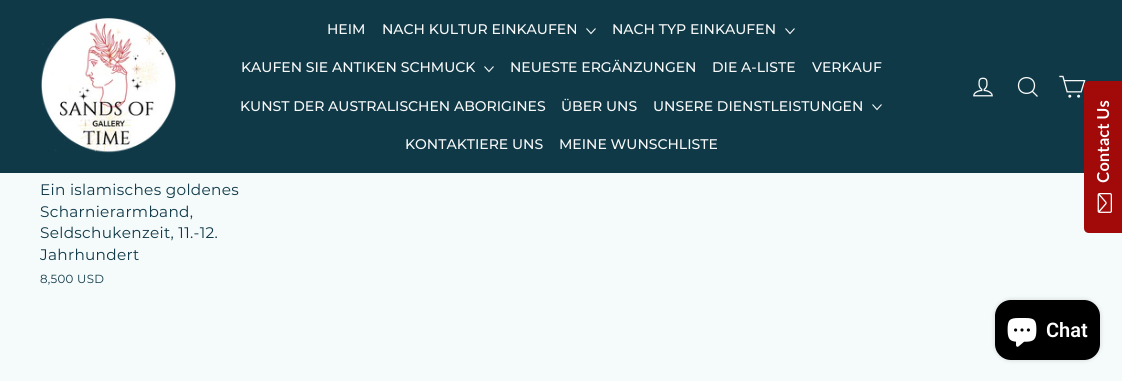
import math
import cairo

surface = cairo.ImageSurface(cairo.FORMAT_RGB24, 1122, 381)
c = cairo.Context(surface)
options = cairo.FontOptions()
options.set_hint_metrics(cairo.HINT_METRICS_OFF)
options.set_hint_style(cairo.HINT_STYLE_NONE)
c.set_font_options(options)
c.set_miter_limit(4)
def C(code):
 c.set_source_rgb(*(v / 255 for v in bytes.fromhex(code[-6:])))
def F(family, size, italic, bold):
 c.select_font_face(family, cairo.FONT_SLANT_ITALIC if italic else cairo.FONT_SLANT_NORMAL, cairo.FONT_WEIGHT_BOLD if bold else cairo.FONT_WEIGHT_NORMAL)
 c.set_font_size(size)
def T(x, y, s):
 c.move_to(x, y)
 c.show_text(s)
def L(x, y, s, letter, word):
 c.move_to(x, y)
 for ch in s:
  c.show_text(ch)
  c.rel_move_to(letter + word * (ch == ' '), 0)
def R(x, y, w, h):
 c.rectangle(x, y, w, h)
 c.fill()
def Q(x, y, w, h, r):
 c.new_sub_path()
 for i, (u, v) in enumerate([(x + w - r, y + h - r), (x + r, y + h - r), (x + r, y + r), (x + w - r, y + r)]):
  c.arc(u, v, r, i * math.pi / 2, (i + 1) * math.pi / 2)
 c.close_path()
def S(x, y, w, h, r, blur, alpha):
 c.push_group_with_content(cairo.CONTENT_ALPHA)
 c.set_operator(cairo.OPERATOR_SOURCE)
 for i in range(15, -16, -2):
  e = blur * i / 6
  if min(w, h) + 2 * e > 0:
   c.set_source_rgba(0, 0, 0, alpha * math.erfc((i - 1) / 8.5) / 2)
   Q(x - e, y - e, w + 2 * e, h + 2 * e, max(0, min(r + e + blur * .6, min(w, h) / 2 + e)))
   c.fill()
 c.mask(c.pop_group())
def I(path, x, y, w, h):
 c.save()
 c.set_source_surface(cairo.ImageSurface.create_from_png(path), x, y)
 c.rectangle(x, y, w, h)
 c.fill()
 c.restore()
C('f5fafb')
c.paint()
C('103948')
R(0,0,1122,173)
I('1.png',41,18,135,135)
F('Montserrat Medium',14,0,0)
C('f7f9f8')
T(327,34,'HEIM')
T(382,34,'NACH KULTUR EINKAUFEN')
c.new_path()
c.move_to(586.5,28.5)
c.line_to(591,33.5)
c.line_to(595.5,28.5)
c.set_line_width(1.1)
c.stroke()
T(612,34,'NACH TYP EINKAUFEN')
c.new_path()
c.move_to(785.5,28.5)
c.line_to(790,33.5)
c.line_to(794.5,28.5)
c.stroke()
T(241,72,'KAUFEN SIE ANTIKEN SCHMUCK')
c.new_path()
c.move_to(484.5,66.5)
c.line_to(489,71.5)
c.line_to(493.5,66.5)
c.stroke()
T(510,72,'NEUESTE ERGÄNZUNGEN')
T(712,72,'DIE A-LISTE')
T(812,72,'VERKAUF')
T(240,111,'KUNST DER AUSTRALISCHEN ABORIGINES')
T(561,111,'ÜBER UNS')
T(653,111,'UNSERE DIENSTLEISTUNGEN')
c.new_path()
c.move_to(872.5,104.5)
c.line_to(877,109.5)
c.line_to(881.5,104.5)
c.stroke()
T(405,149,'KONTAKTIERE UNS')
T(559,149,'MEINE WUNSCHLISTE')
I('2.png',973,77,20,20)
c.new_path()
c.move_to(1034.5,85.5)
c.curve_to(1034.5,96,1018.5,96,1018.5,85.5)
c.curve_to(1018.5,75,1034.5,75,1034.5,85.5)
c.close_path()
c.move_to(1037.5,96.5)
c.line_to(1032.5,91.5)
c.set_line_width(1.3)
c.stroke()
I('3.png',1059,75,27,23)
F('Montserrat',15.3,0,0)
C('103948')
L(40,195,'Ein islamisches goldenes',.3,0)
L(40,217,'Scharnierarmband,',.3,0)
L(40,238,'Seldschukenzeit, 11.-12.',.3,0)
L(40,260,'Jahrhundert',.3,0)
F('Montserrat',11.75,0,0)
L(40,283,'8,500 USD',.3,0)
C('a20a0a')
c.new_path()
c.move_to(1084,228)
c.line_to(1084,86)
c.curve_to(1084,83,1086,81,1089,81)
c.line_to(1122,81)
c.line_to(1122,233)
c.line_to(1089,233)
c.curve_to(1086,233,1084,231,1084,228)
c.close_path()
c.fill()
F('Lato',16,0,1)
C('ffffff')
c.save()
c.translate(1109,183)
c.rotate(-90 * math.pi / 180)
L(0,0,'Contact Us',.5,0)
c.restore()
I('4.png',1097,193,15,20)
C('000000')
S(995,300,105,60,16,2.5,.15)
C('000000')
Q(995,300,105,60,16)
c.fill()
I('5.png',1007,318,30,29)
F('Roboto SemiBold',20,0,0)
C('ffffff')
T(1046,337,'Chat')
surface.write_to_png('o.png')
